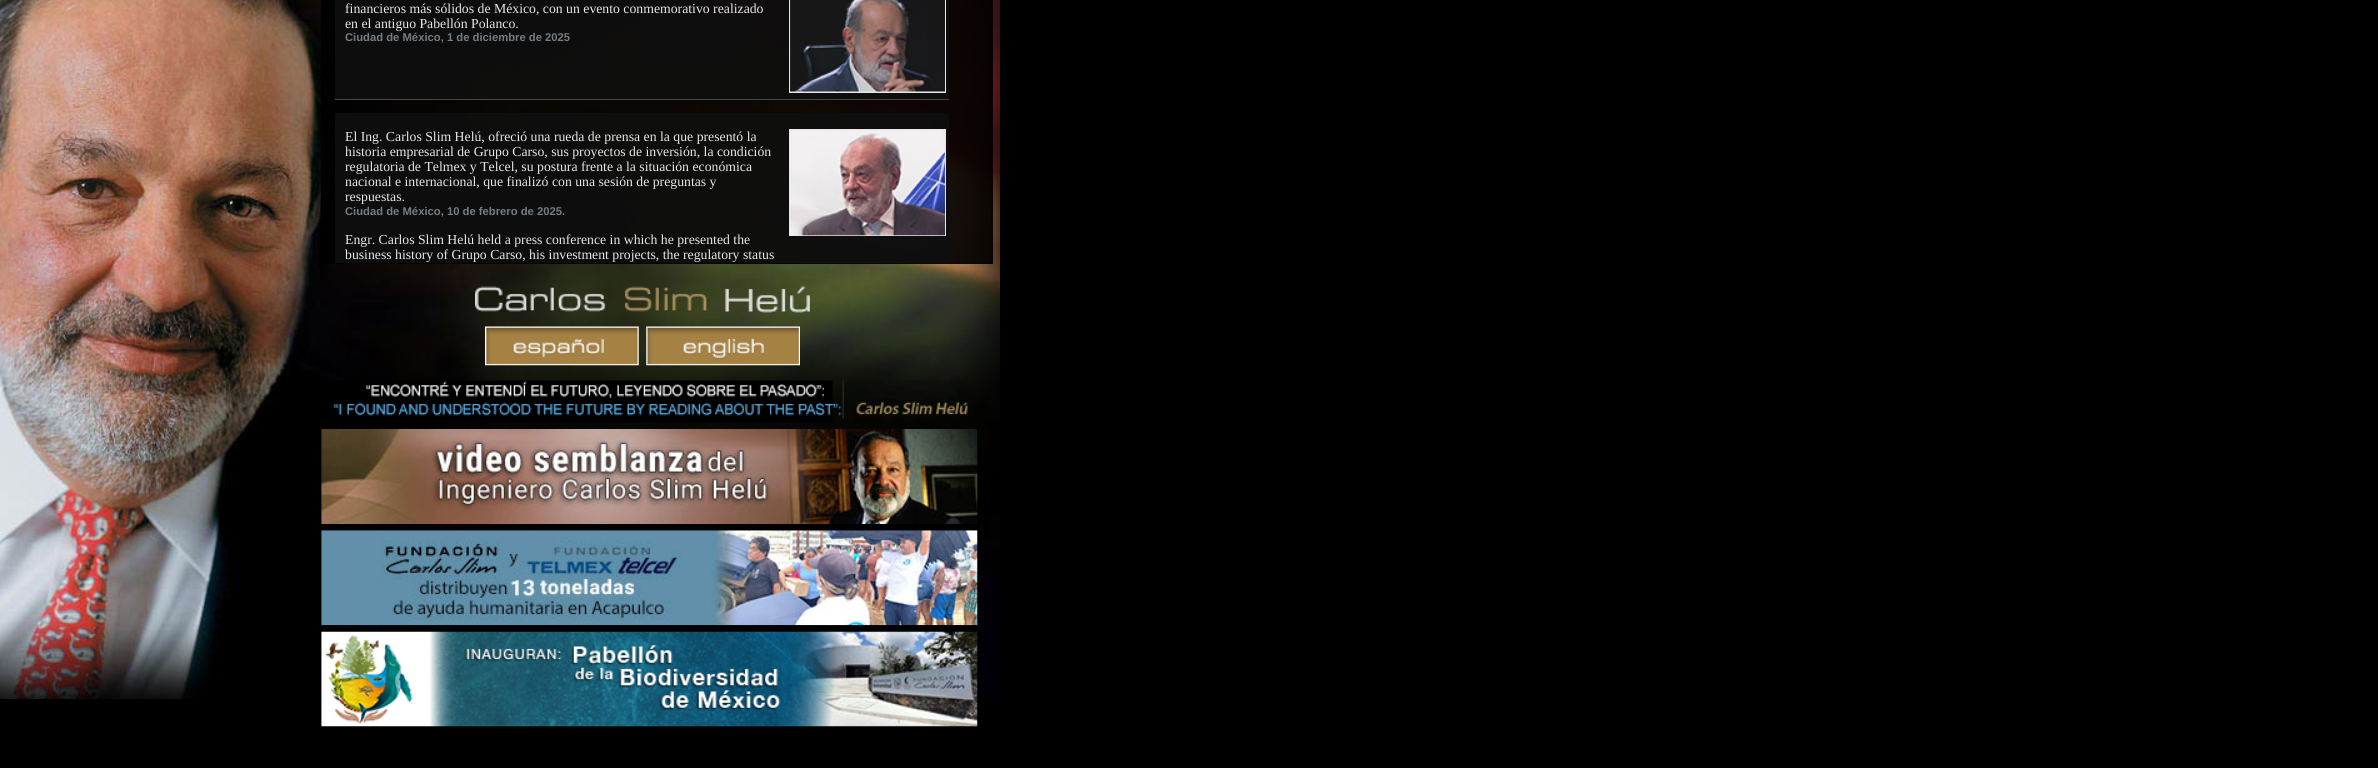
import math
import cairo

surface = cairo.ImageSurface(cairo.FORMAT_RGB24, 2378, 768)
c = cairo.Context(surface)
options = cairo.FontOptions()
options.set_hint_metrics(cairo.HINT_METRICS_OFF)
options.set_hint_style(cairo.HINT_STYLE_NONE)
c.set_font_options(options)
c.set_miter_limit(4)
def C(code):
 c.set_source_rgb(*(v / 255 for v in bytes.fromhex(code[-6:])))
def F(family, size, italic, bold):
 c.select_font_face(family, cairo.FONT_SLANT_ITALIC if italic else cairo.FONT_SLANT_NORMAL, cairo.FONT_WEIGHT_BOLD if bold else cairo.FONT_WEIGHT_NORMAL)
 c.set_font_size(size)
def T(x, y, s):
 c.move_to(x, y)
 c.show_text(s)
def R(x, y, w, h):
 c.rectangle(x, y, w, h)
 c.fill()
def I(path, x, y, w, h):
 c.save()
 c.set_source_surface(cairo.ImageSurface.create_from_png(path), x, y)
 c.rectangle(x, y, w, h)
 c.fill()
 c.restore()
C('000000')
c.paint()
I('1.png',0,0,1000,699)
c.set_source_rgba(0,0,0,0.9)
R(321,0,672,264)
c.new_path()
c.move_to(992,-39)
c.line_to(992,264)
c.set_line_width(1.2)
c.set_dash([1.25,1.25])
c.stroke()
c.new_path()
c.move_to(321,263)
c.line_to(992.5,263)
c.stroke()
c.set_source_rgba(0.059,0.059,0.059,0.9)
R(335,0,614,99)
C('484848')
R(335,99,614,1)
F('Liberation Serif',13.75,0,0)
C('e7e7e7')
T(345,13,'financieros más sólidos de México, con un evento conmemorativo realizado')
T(345,28,'en el antiguo Pabellón Polanco.')
F('Liberation Sans',11.25,0,1)
C('747d84')
T(345,41,'Ciudad de México, 1 de diciembre de 2025')
C('e7e7e7')
R(789,0,157,93)
I('2.png',790,0,155,92)
c.set_source_rgba(0.059,0.059,0.059,0.9)
R(335,113,614,150)
F('Liberation Serif',13.75,0,0)
C('e7e7e7')
T(345,141,'El Ing. Carlos Slim Helú, ofreció una rueda de prensa en la que presentó la')
T(345,156,'historia empresarial de Grupo Carso, sus proyectos de inversión, la condición')
T(345,171,'regulatoria de Telmex y Telcel, su postura frente a la situación económica')
T(345,186,'nacional e internacional, que finalizó con una sesión de preguntas y')
T(345,201,'respuestas.')
F('Liberation Sans',11.25,0,1)
C('747d84')
T(345,215,'Ciudad de México, 10 de febrero de 2025.')
F('Liberation Serif',13.75,0,0)
C('e7e7e7')
T(345,244,'Engr. Carlos Slim Helú held a press conference in which he presented the')
T(345,259,'business history of Grupo Carso, his investment projects, the regulatory status')
R(789,129,157,107)
I('3.png',790,130,155,106)
I('4.png',475,286,335,27)
I('5.png',485,326,154,40)
I('6.png',646,326,154,40)
I('7.png',333,380,635,43)
I('8.png',321,429,657,95)
I('9.png',321,530,657,96)
I('10.png',321,631,657,96)
surface.write_to_png('o.png')
